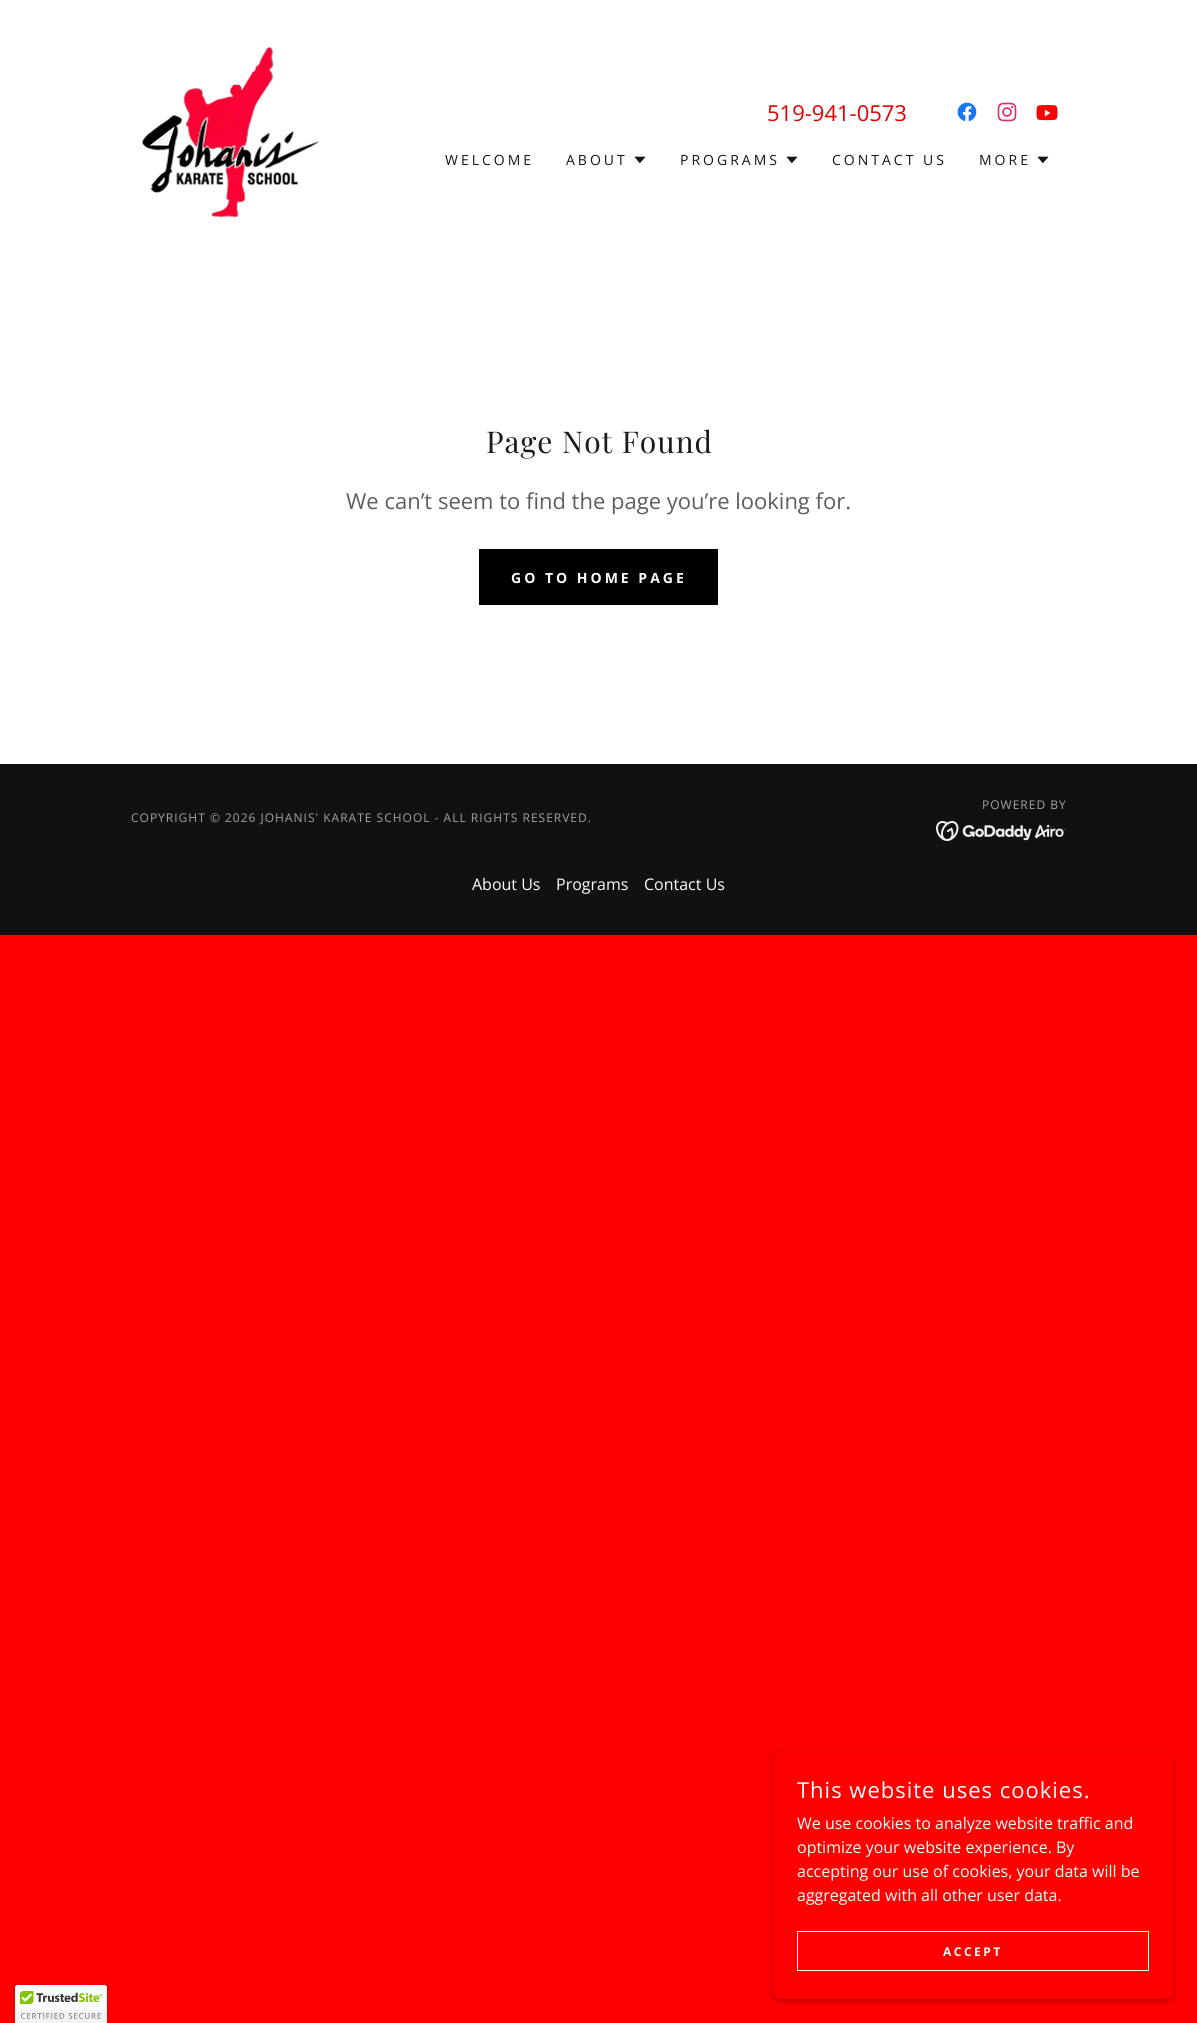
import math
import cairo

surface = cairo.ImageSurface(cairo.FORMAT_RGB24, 1197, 2023)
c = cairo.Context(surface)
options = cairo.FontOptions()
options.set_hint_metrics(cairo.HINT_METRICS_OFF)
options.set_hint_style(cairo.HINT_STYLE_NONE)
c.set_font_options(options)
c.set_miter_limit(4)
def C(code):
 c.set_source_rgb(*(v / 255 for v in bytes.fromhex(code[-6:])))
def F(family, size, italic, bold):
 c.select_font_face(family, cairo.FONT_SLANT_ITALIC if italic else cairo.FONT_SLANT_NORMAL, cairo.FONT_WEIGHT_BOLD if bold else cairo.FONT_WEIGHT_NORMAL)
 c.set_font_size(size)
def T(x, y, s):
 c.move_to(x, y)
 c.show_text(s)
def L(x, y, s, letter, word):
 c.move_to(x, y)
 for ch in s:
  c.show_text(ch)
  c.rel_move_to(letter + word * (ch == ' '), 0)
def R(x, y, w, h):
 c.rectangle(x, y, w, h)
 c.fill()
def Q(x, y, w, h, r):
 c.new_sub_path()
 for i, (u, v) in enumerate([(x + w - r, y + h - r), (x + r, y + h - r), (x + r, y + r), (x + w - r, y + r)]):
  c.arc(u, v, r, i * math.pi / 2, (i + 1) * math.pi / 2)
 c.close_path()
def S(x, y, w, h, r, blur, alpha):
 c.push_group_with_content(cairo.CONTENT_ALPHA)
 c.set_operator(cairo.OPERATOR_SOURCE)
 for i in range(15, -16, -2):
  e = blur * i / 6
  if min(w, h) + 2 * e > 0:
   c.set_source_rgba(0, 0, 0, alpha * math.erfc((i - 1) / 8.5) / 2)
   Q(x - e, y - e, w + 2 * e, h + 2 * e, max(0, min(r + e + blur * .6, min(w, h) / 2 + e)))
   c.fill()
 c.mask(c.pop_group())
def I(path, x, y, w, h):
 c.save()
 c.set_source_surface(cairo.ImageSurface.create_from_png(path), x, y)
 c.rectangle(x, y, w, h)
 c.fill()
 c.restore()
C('ff0000')
c.paint()
C('ffffff')
R(0,0,1197,764)
I('1.png',142,46,178,172)
F('Open Sans',22,0,0)
C('e30000')
T(767,121,'519-941-0573')
I('2.png',957,102,20,20)
I('3.png',997,102,20,20)
I('4.png',1036,105,22,16)
F('Open Sans',14,0,0)
C('151515')
L(445,165,'WELCOME',3,0)
L(566,165,'ABOUT',3,0)
I('5.png',634,156,12,8)
L(680,165,'PROGRAMS',3,0)
I('5.png',786,156,12,8)
L(832,165,'CONTACT US',3,0)
L(979,165,'MORE',3,0)
I('5.png',1037,156,12,8)
F('Playfair Display',30,0,0)
C('1b1b1b')
L(486,453,'Page Not Found',1,0)
F('Open Sans',22,0,0)
C('5e5e5e')
T(346,509,'We can’t seem to find the page you’re looking for.')
C('000000')
R(479,549,239,56)
F('Open Sans',14,0,1)
C('ffffff')
L(511,583,'GO TO HOME PAGE',3,0)
C('121010')
R(0,764,1197,171)
F('Open Sans',12,0,0)
C('a4a2a2')
L(982,809,'POWERED BY',1,0)
I('6.png',936,821,130,20)
L(131,822,'COPYRIGHT © 2026 JOHANIS\' KARATE SCHOOL - ALL RIGHTS RESERVED.',1,0)
F('Open Sans',16,0,0)
C('ffffff')
T(472,890,'About Us')
T(556,890,'Programs')
T(644,890,'Contact Us')
C('000000')
S(773,1754,400,247,7,3,.3)
C('ff0000')
Q(773,1752,400,247,7)
c.fill()
F('Open Sans',22,0,0)
C('ffffff')
L(797,1798,'This website uses cookies.',1,0)
F('Open Sans',16,0,0)
T(797,1829,'We use cookies to analyze website traffic and')
T(797,1853,'optimize your website experience. By')
T(797,1877,'accepting our use of cookies, your data will be')
T(797,1901,'aggregated with all other user data.')
c.rectangle(797.5,1931.5,351,39)
c.set_line_width(1)
c.stroke()
F('Open Sans',12,0,1)
L(943,1956,'ACCEPT',2.5,0)
C('000000')
S(15,1985,92,38,2,2.5,.2)
I('7.png',15,1985,92,38)
surface.write_to_png('o.png')
